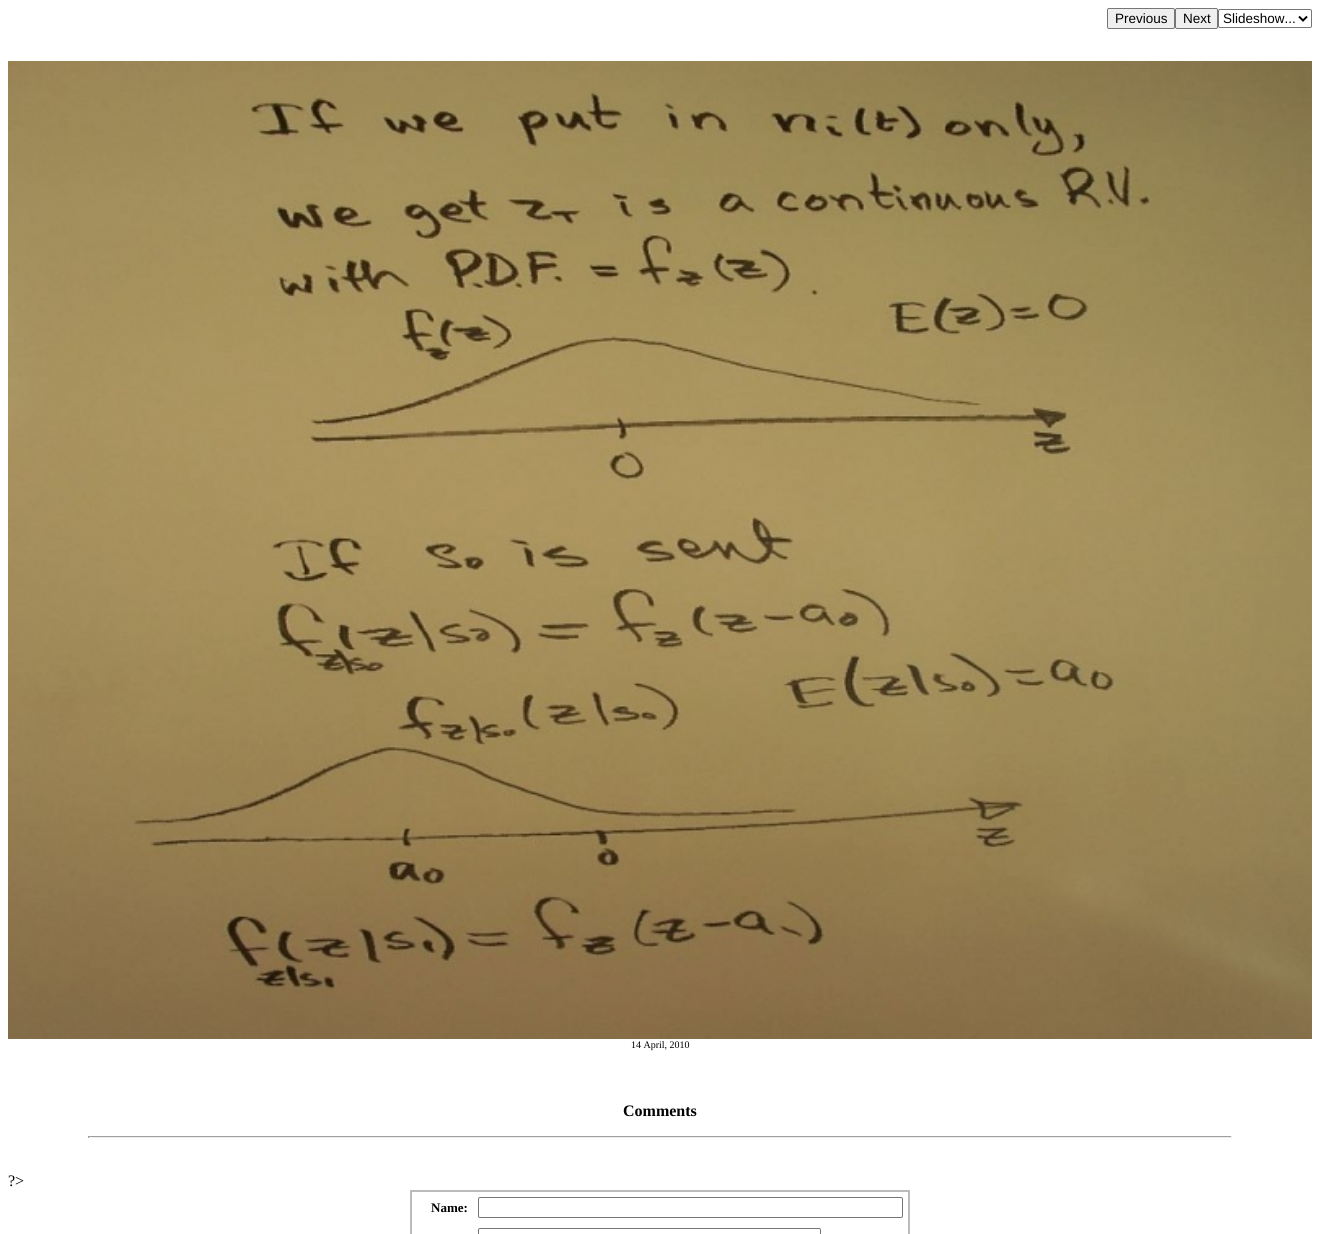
import math
import cairo

surface = cairo.ImageSurface(cairo.FORMAT_RGB24, 1320, 1234)
c = cairo.Context(surface)
options = cairo.FontOptions()
options.set_hint_metrics(cairo.HINT_METRICS_OFF)
options.set_hint_style(cairo.HINT_STYLE_NONE)
c.set_font_options(options)
c.set_miter_limit(4)
def C(code):
 c.set_source_rgb(*(v / 255 for v in bytes.fromhex(code[-6:])))
def F(family, size, italic, bold):
 c.select_font_face(family, cairo.FONT_SLANT_ITALIC if italic else cairo.FONT_SLANT_NORMAL, cairo.FONT_WEIGHT_BOLD if bold else cairo.FONT_WEIGHT_NORMAL)
 c.set_font_size(size)
def T(x, y, s):
 c.move_to(x, y)
 c.show_text(s)
def R(x, y, w, h):
 c.rectangle(x, y, w, h)
 c.fill()
def Q(x, y, w, h, r):
 c.new_sub_path()
 for i, (u, v) in enumerate([(x + w - r, y + h - r), (x + r, y + h - r), (x + r, y + r), (x + w - r, y + r)]):
  c.arc(u, v, r, i * math.pi / 2, (i + 1) * math.pi / 2)
 c.close_path()
def I(path, x, y, w, h):
 c.save()
 c.set_source_surface(cairo.ImageSurface.create_from_png(path), x, y)
 c.rectangle(x, y, w, h)
 c.fill()
 c.restore()
C('ffffff')
c.paint()
C('efefef')
Q(1107.5,8.5,67,20,1.5)
c.fill_preserve()
C('767676')
c.set_line_width(1)
c.stroke()
F('Liberation Sans',13.5,0,0)
C('000000')
T(1115,23,'Previous')
C('efefef')
Q(1175.5,8.5,42,20,1.5)
c.fill_preserve()
C('767676')
c.stroke()
C('000000')
T(1183,23,'Next')
Q(1218.5,9.5,93,18,1.5)
C('767676')
c.stroke()
c.new_path()
c.move_to(1299,16.5)
c.line_to(1303,20.5)
c.line_to(1307,16.5)
C('000000')
c.set_line_width(2)
c.stroke()
T(1223,23,'Slideshow...')
I('1.png',8,61,1304,978)
F('Liberation Serif',10,0,0)
T(631,1048,'14 April, 2010')
F('Liberation Serif',16,0,1)
T(623,1116,'Comments')
C('9f9f9f')
R(88,1136,1144,1)
C('eeeeee')
R(1231,1136,1,2)
R(88,1137,1144,1)
C('9f9f9f')
R(88,1136,1,2)
F('Liberation Serif',16,0,0)
C('000000')
T(8,1186,'?>')
C('bbbbbb')
R(410,1190,500,44)
C('ffffff')
R(412,1192,496,42)
F('Liberation Serif',13,0,1)
C('000000')
T(431,1212,'Name:')
Q(478.5,1197.5,424,20,1.5)
C('767676')
c.set_line_width(1)
c.stroke()
Q(478.5,1228.5,342,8,1.5)
c.stroke()
surface.write_to_png('o.png')
